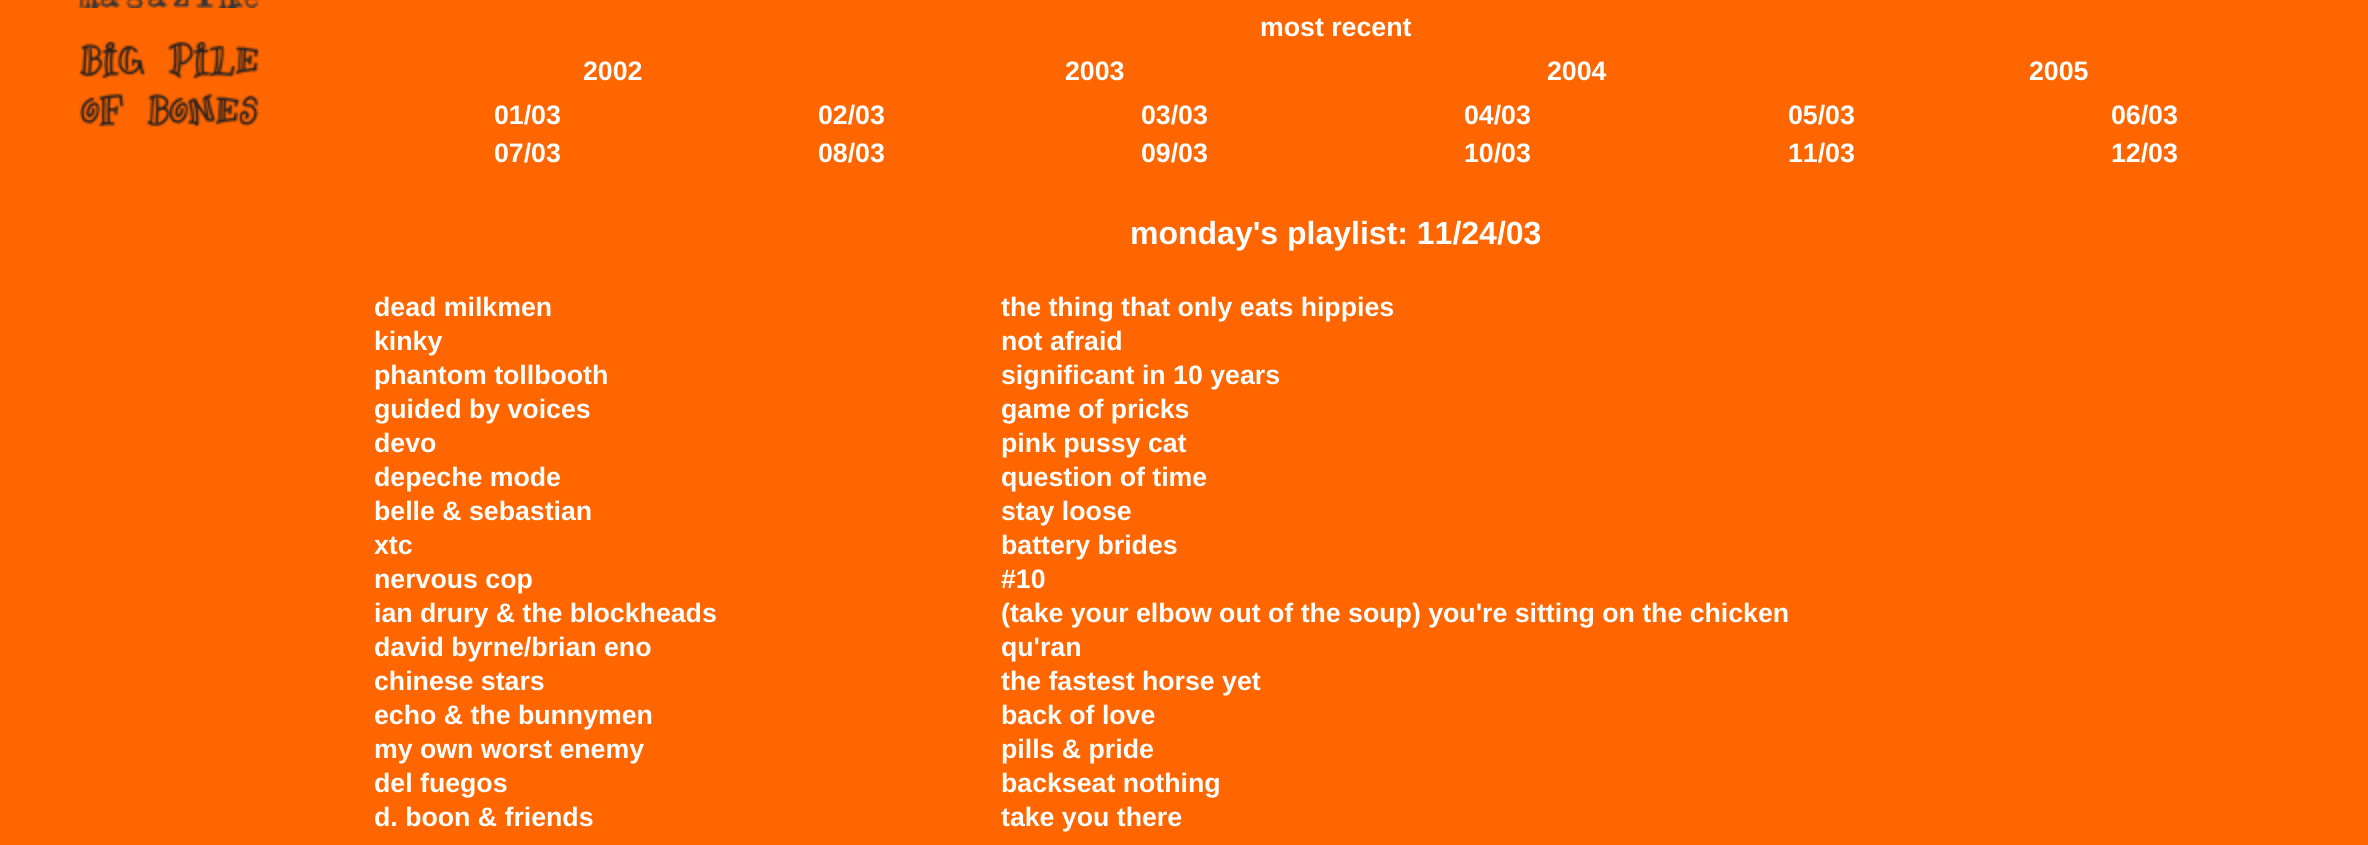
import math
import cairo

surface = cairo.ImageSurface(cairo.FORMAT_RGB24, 2368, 845)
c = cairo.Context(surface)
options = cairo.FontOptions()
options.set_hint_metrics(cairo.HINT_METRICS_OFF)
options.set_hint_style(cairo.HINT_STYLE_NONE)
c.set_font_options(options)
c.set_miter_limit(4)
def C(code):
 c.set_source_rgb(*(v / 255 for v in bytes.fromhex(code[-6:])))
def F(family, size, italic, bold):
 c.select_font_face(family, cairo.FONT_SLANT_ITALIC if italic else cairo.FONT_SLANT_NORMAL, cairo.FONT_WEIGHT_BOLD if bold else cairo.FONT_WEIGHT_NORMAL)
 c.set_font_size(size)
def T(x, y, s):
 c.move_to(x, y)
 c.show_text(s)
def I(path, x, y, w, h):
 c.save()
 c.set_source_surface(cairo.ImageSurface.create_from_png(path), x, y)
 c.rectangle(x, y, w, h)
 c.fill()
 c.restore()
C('ff6600')
c.paint()
I('1.png',77,0,183,8)
I('2.png',79,41,180,86)
F('Liberation Sans',26.7,0,1)
C('ffffff')
T(1260,36,'most recent')
T(583,80,'2002')
T(1065,80,'2003')
T(1547,80,'2004')
T(2029,80,'2005')
T(494,124,'01/03')
T(818,124,'02/03')
T(1141,124,'03/03')
T(1464,124,'04/03')
T(1788,124,'05/03')
T(2111,124,'06/03')
T(494,162,'07/03')
T(818,162,'08/03')
T(1141,162,'09/03')
T(1464,162,'10/03')
T(1788,162,'11/03')
T(2111,162,'12/03')
F('Liberation Sans',32,0,1)
T(1130,244,'monday\'s playlist: 11/24/03')
F('Liberation Sans',26.7,0,1)
T(374,316,'dead milkmen')
T(1001,316,'the thing that only eats hippies')
T(374,350,'kinky')
T(1001,350,'not afraid')
T(374,384,'phantom tollbooth')
T(1001,384,'significant in 10 years')
T(374,418,'guided by voices')
T(1001,418,'game of pricks')
T(374,452,'devo')
T(1001,452,'pink pussy cat')
T(374,486,'depeche mode')
T(1001,486,'question of time')
T(374,520,'belle & sebastian')
T(1001,520,'stay loose')
T(374,554,'xtc')
T(1001,554,'battery brides')
T(374,588,'nervous cop')
T(1001,588,'#10')
T(374,622,'ian drury & the blockheads')
T(1001,622,'(take your elbow out of the soup) you\'re sitting on the chicken')
T(374,656,'david byrne/brian eno')
T(1001,656,'qu\'ran')
T(374,690,'chinese stars')
T(1001,690,'the fastest horse yet')
T(374,724,'echo & the bunnymen')
T(1001,724,'back of love')
T(374,758,'my own worst enemy')
T(1001,758,'pills & pride')
T(374,792,'del fuegos')
T(1001,792,'backseat nothing')
T(374,826,'d. boon & friends')
T(1001,826,'take you there')
surface.write_to_png('o.png')
